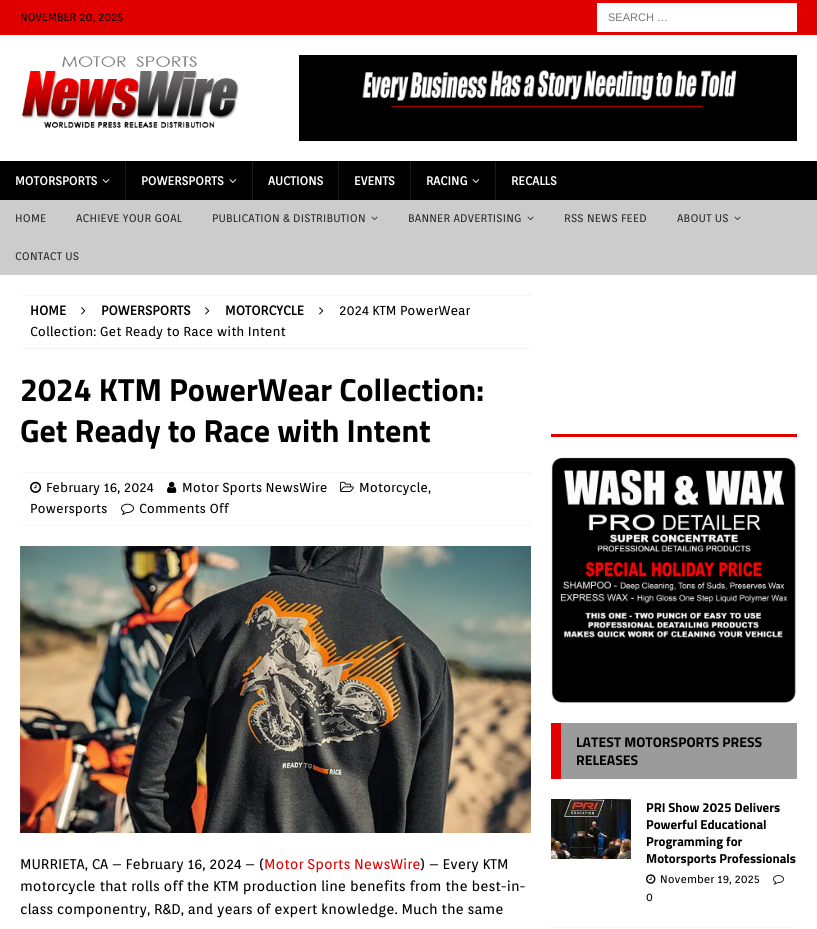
import math
import cairo

surface = cairo.ImageSurface(cairo.FORMAT_RGB24, 817, 929)
c = cairo.Context(surface)
options = cairo.FontOptions()
options.set_hint_metrics(cairo.HINT_METRICS_OFF)
options.set_hint_style(cairo.HINT_STYLE_NONE)
c.set_font_options(options)
c.set_miter_limit(4)
def C(code):
 c.set_source_rgb(*(v / 255 for v in bytes.fromhex(code[-6:])))
def F(family, size, italic, bold):
 c.select_font_face(family, cairo.FONT_SLANT_ITALIC if italic else cairo.FONT_SLANT_NORMAL, cairo.FONT_WEIGHT_BOLD if bold else cairo.FONT_WEIGHT_NORMAL)
 c.set_font_size(size)
def T(x, y, s):
 c.move_to(x, y)
 c.show_text(s)
def L(x, y, s, letter, word):
 c.move_to(x, y)
 for ch in s:
  c.show_text(ch)
  c.rel_move_to(letter + word * (ch == ' '), 0)
def R(x, y, w, h):
 c.rectangle(x, y, w, h)
 c.fill()
def I(path, x, y, w, h):
 c.save()
 c.set_source_surface(cairo.ImageSurface.create_from_png(path), x, y)
 c.rectangle(x, y, w, h)
 c.fill()
 c.restore()
C('e00000')
c.paint()
F('Orienta',11,0,0)
C('000000')
T(20,21,'NOVEMBER 20, 2025')
C('ffffff')
R(597,3,200,29)
F('Liberation Sans',11,0,0)
C('757575')
T(608,21,'SEARCH …')
C('ffffff')
R(0,35,817,126)
I('1.png',22,56,217,72)
I('2.png',299,55,498,86)
C('000000')
R(0,161,817,39)
F('Orienta',12,0,1)
C('ffffff')
T(15,185,'MOTORSPORTS')
I('3.png',102,179,8,4)
C('1a1a1a')
R(125,161,1,39)
C('ffffff')
T(141,185,'POWERSPORTS')
I('3.png',229,179,8,4)
C('1a1a1a')
R(252,161,1,39)
C('ffffff')
T(268,185,'AUCTIONS')
C('1a1a1a')
R(338,161,1,39)
C('ffffff')
T(354,185,'EVENTS')
C('1a1a1a')
R(410,161,1,39)
C('ffffff')
T(426,185,'RACING')
I('3.png',472,179,8,4)
C('1a1a1a')
R(495,161,1,39)
C('ffffff')
T(511,185,'RECALLS')
C('cccccc')
R(0,200,817,75)
F('Orienta',11,0,0)
C('2a2a2a')
L(15,222,'HOME',.2,0)
L(76,222,'ACHIEVE YOUR GOAL',.2,0)
L(212,222,'PUBLICATION & DISTRIBUTION',.2,0)
I('4.png',371,216,7,5)
L(408,222,'BANNER ADVERTISING',.2,0)
I('4.png',527,216,7,5)
L(564,222,'RSS NEWS FEED',.2,0)
L(677,222,'ABOUT US',.2,0)
I('4.png',734,216,7,5)
L(15,260,'CONTACT US',.2,0)
C('ffffff')
R(0,275,817,654)
c.new_path()
c.move_to(20,295.5)
c.line_to(531,295.5)
C('ebebeb')
c.set_line_width(1)
c.set_dash([1,1])
c.stroke()
c.new_path()
c.move_to(20,348.5)
c.line_to(531,348.5)
c.stroke()
F('Orienta',13,0,1)
C('000000')
T(30,315,'HOME')
I('5.png',81,307,5,8)
T(101,315,'POWERSPORTS')
I('5.png',205,307,5,8)
T(225,315,'MOTORCYCLE')
I('5.png',319,307,5,8)
F('Orienta',13,0,0)
T(339,315,'2024 KTM PowerWear')
T(30,336,'Collection: Get Ready to Race with Intent')
F('Titillium Web',32,0,1)
T(20,401,'2024 KTM PowerWear Collection:')
T(20,442,'Get Ready to Race with Intent')
c.new_path()
c.move_to(20,472.5)
c.line_to(531,472.5)
C('ebebeb')
c.stroke()
c.new_path()
c.move_to(20,525.5)
c.line_to(531,525.5)
c.stroke()
I('6.png',340,481,14,11)
F('Orienta',13,0,0)
C('000000')
T(359,492,'Motorcycle,')
T(30,513,'Powersports')
I('7.png',30,481,12,12)
T(46,492,'February 16, 2024')
I('8.png',167,481,10,12)
T(182,492,'Motor Sports NewsWire')
I('9.png',121,503,13,12)
T(139,513,'Comments Off')
I('10.png',20,546,511,287)
F('Orienta',14,0,0)
T(20,869,'MURRIETA, CA – February 16, 2024 – (')
C('e00000')
T(264,869,'Motor Sports NewsWire')
C('000000')
T(420,869,') – Every KTM')
T(20,891,'motorcycle that rolls off the KTM production line benefits from the best-in-')
T(20,914,'class componentry, R&D, and years of expert knowledge. Much the same')
C('e00000')
R(551,434,246,3)
I('11.png',551,457,245,246)
C('9b9b9b')
R(561,723,236,56)
C('e00000')
R(551,723,10,56)
F('Titillium Web',14,0,1)
C('000000')
T(576,747,'LATEST MOTORSPORTS PRESS')
T(576,765,'RELEASES')
c.new_path()
c.move_to(551,927.5)
c.line_to(797,927.5)
C('ebebeb')
c.stroke()
I('12.png',551,799,80,60)
F('Titillium Web',13,0,1)
C('000000')
T(646,812,'PRI Show 2025 Delivers')
T(646,829,'Powerful Educational')
T(646,846,'Programming for')
T(646,863,'Motorsports Professionals')
I('13.png',646,874,10,10)
F('Orienta',11,0,0)
T(660,883,'November 19, 2025')
I('14.png',773,875,11,10)
T(646,901,'0')
surface.write_to_png('o.png')
